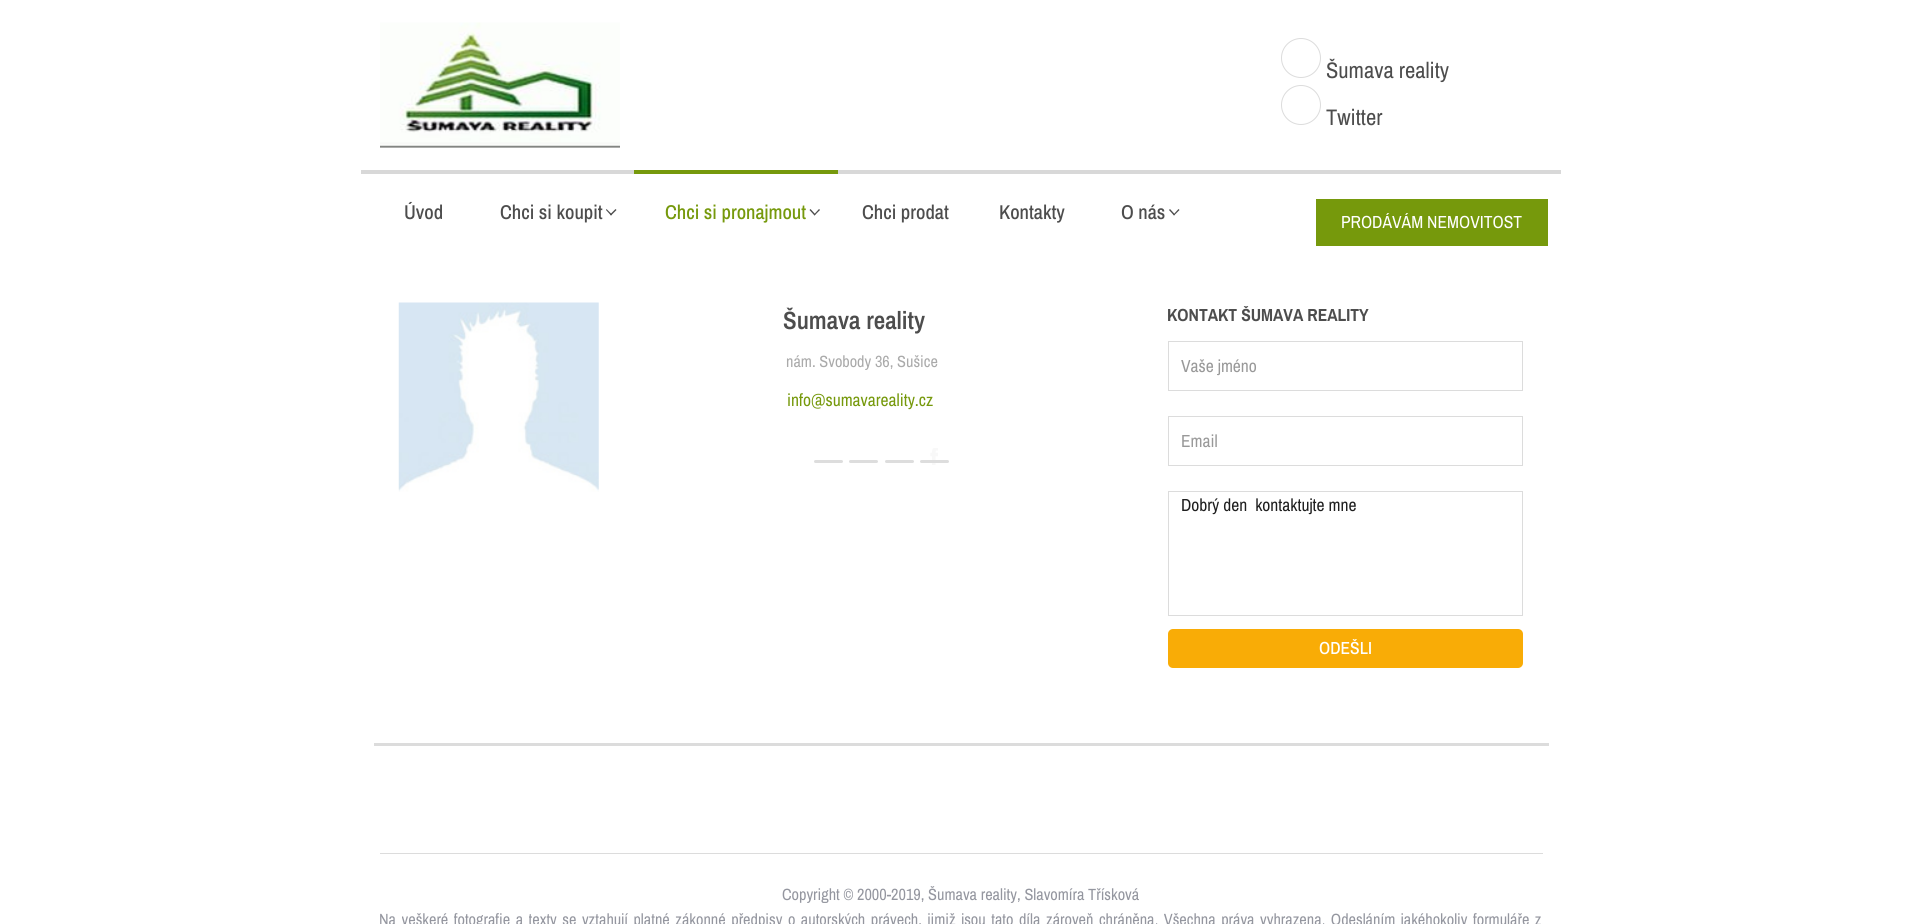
import math
import cairo

surface = cairo.ImageSurface(cairo.FORMAT_RGB24, 1921, 924)
c = cairo.Context(surface)
options = cairo.FontOptions()
options.set_hint_metrics(cairo.HINT_METRICS_OFF)
options.set_hint_style(cairo.HINT_STYLE_NONE)
c.set_font_options(options)
c.set_miter_limit(4)
def C(code):
 c.set_source_rgb(*(v / 255 for v in bytes.fromhex(code[-6:])))
def F(family, size, italic, bold):
 c.select_font_face(family, cairo.FONT_SLANT_ITALIC if italic else cairo.FONT_SLANT_NORMAL, cairo.FONT_WEIGHT_BOLD if bold else cairo.FONT_WEIGHT_NORMAL)
 c.set_font_size(size)
def T(x, y, s):
 c.move_to(x, y)
 c.show_text(s)
def L(x, y, s, letter, word):
 c.move_to(x, y)
 for ch in s:
  c.show_text(ch)
  c.rel_move_to(letter + word * (ch == ' '), 0)
def R(x, y, w, h):
 c.rectangle(x, y, w, h)
 c.fill()
def Q(x, y, w, h, r):
 c.new_sub_path()
 for i, (u, v) in enumerate([(x + w - r, y + h - r), (x + r, y + h - r), (x + r, y + r), (x + w - r, y + r)]):
  c.arc(u, v, r, i * math.pi / 2, (i + 1) * math.pi / 2)
 c.close_path()
def I(path, x, y, w, h):
 c.save()
 c.set_source_surface(cairo.ImageSurface.create_from_png(path), x, y)
 c.rectangle(x, y, w, h)
 c.fill()
 c.restore()
C('ffffff')
c.paint()
I('1.png',380,22,240,126)
c.arc(1301,58,19.5,0,2 * math.pi)
C('dcdcdc')
c.set_line_width(1)
c.stroke()
F('Archivo Narrow',22.5,0,0)
C('4d4d4d')
T(1326,78,'Šumava reality')
c.new_path()
c.arc(1301,105,19.5,0,2 * math.pi)
C('dcdcdc')
c.stroke()
C('4d4d4d')
T(1326,125,'Twitter')
C('d8d8d8')
R(361,170,1200,4)
F('Archivo Narrow Medium',20,0,0)
C('4d4d4d')
T(404,219,'Úvod')
T(500,219,'Chci si koupit')
c.new_path()
c.move_to(616.5,210)
c.line_to(611,215.5)
c.line_to(610,214.5)
c.line_to(615.5,209)
c.close_path()
c.fill()
c.new_path()
c.move_to(612,214.5)
c.line_to(611,215.5)
c.line_to(606,210)
c.line_to(606.5,209)
c.close_path()
c.fill()
C('76990c')
R(634,170,204,4)
T(665,219,'Chci si pronajmout')
C('4d4d4d')
c.new_path()
c.move_to(820,210)
c.line_to(814.5,215.5)
c.line_to(814,214.5)
c.line_to(819,209)
c.close_path()
c.fill()
c.new_path()
c.move_to(815.5,214.5)
c.line_to(814.5,215.5)
c.line_to(809.5,210)
c.line_to(810.5,209)
c.close_path()
c.fill()
T(862,219,'Chci prodat')
T(999,219,'Kontakty')
T(1121,219,'O nás')
c.new_path()
c.move_to(1179.5,210)
c.line_to(1174,215.5)
c.line_to(1173.5,214.5)
c.line_to(1178.5,209)
c.close_path()
c.fill()
c.new_path()
c.move_to(1175,214.5)
c.line_to(1174,215.5)
c.line_to(1169,210)
c.line_to(1170,209)
c.close_path()
c.fill()
C('76990c')
R(1316,199,232,47)
F('Archivo Narrow',17.5,0,0)
C('ffffff')
T(1341,228,'PRODÁVÁM NEMOVITOST')
C('dcdcdc')
R(374,743,1175,3)
I('2.png',398,302,201,190)
F('Archivo Narrow SemiBold',25,0,0)
C('4d4d4d')
T(783,329,'Šumava reality')
F('Archivo Narrow',16.25,0,0)
C('aaaaaa')
T(786,367,'nám. Svobody 36, Sušice')
F('Archivo Narrow',17.5,0,0)
C('76990c')
T(787,406,'info@sumavareality.cz')
C('dddddd')
Q(814,460,29,3,1.5)
c.fill()
Q(849,460,29,3,1.5)
c.fill()
Q(885,460,29,3,1.5)
c.fill()
I('3.png',930,448,8,17)
Q(920,460,29,3,1.5)
c.fill()
F('Archivo Narrow',17.5,0,1)
C('4d4d4d')
T(1167,321,'KONTAKT ŠUMAVA REALITY')
c.rectangle(1168.5,341.5,354,49)
C('dcdcdc')
c.stroke()
F('Archivo Narrow',17.5,0,0)
C('999999')
T(1181,372,'Vaše jméno')
c.rectangle(1168.5,416.5,354,49)
C('dcdcdc')
c.stroke()
C('999999')
T(1181,447,'Email')
c.rectangle(1168.5,491.5,354,124)
C('dcdcdc')
c.stroke()
C('1f1f1f')
T(1181,511,'Dobrý den  kontaktujte mne')
C('f9ac06')
Q(1168,629,355,39,5)
c.fill()
F('Archivo Narrow Medium',17.5,0,0)
C('ffffff')
T(1319,654,'ODEŠLI')
C('dcdcdc')
R(380,853,1163,1)
F('Archivo Narrow',16.25,0,0)
C('94969f')
T(782,900,'Copyright © 2000-2019, Šumava reality, Slavomíra Třísková')
L(379,925,'Na veškeré fotografie a texty se vztahují platné zákonné předpisy o autorských právech, jimiž jsou tato díla zároveň chráněna. Všechna práva vyhrazena. Odesláním jakéhokoliv formuláře z',0,1.85)
surface.write_to_png('o.png')
